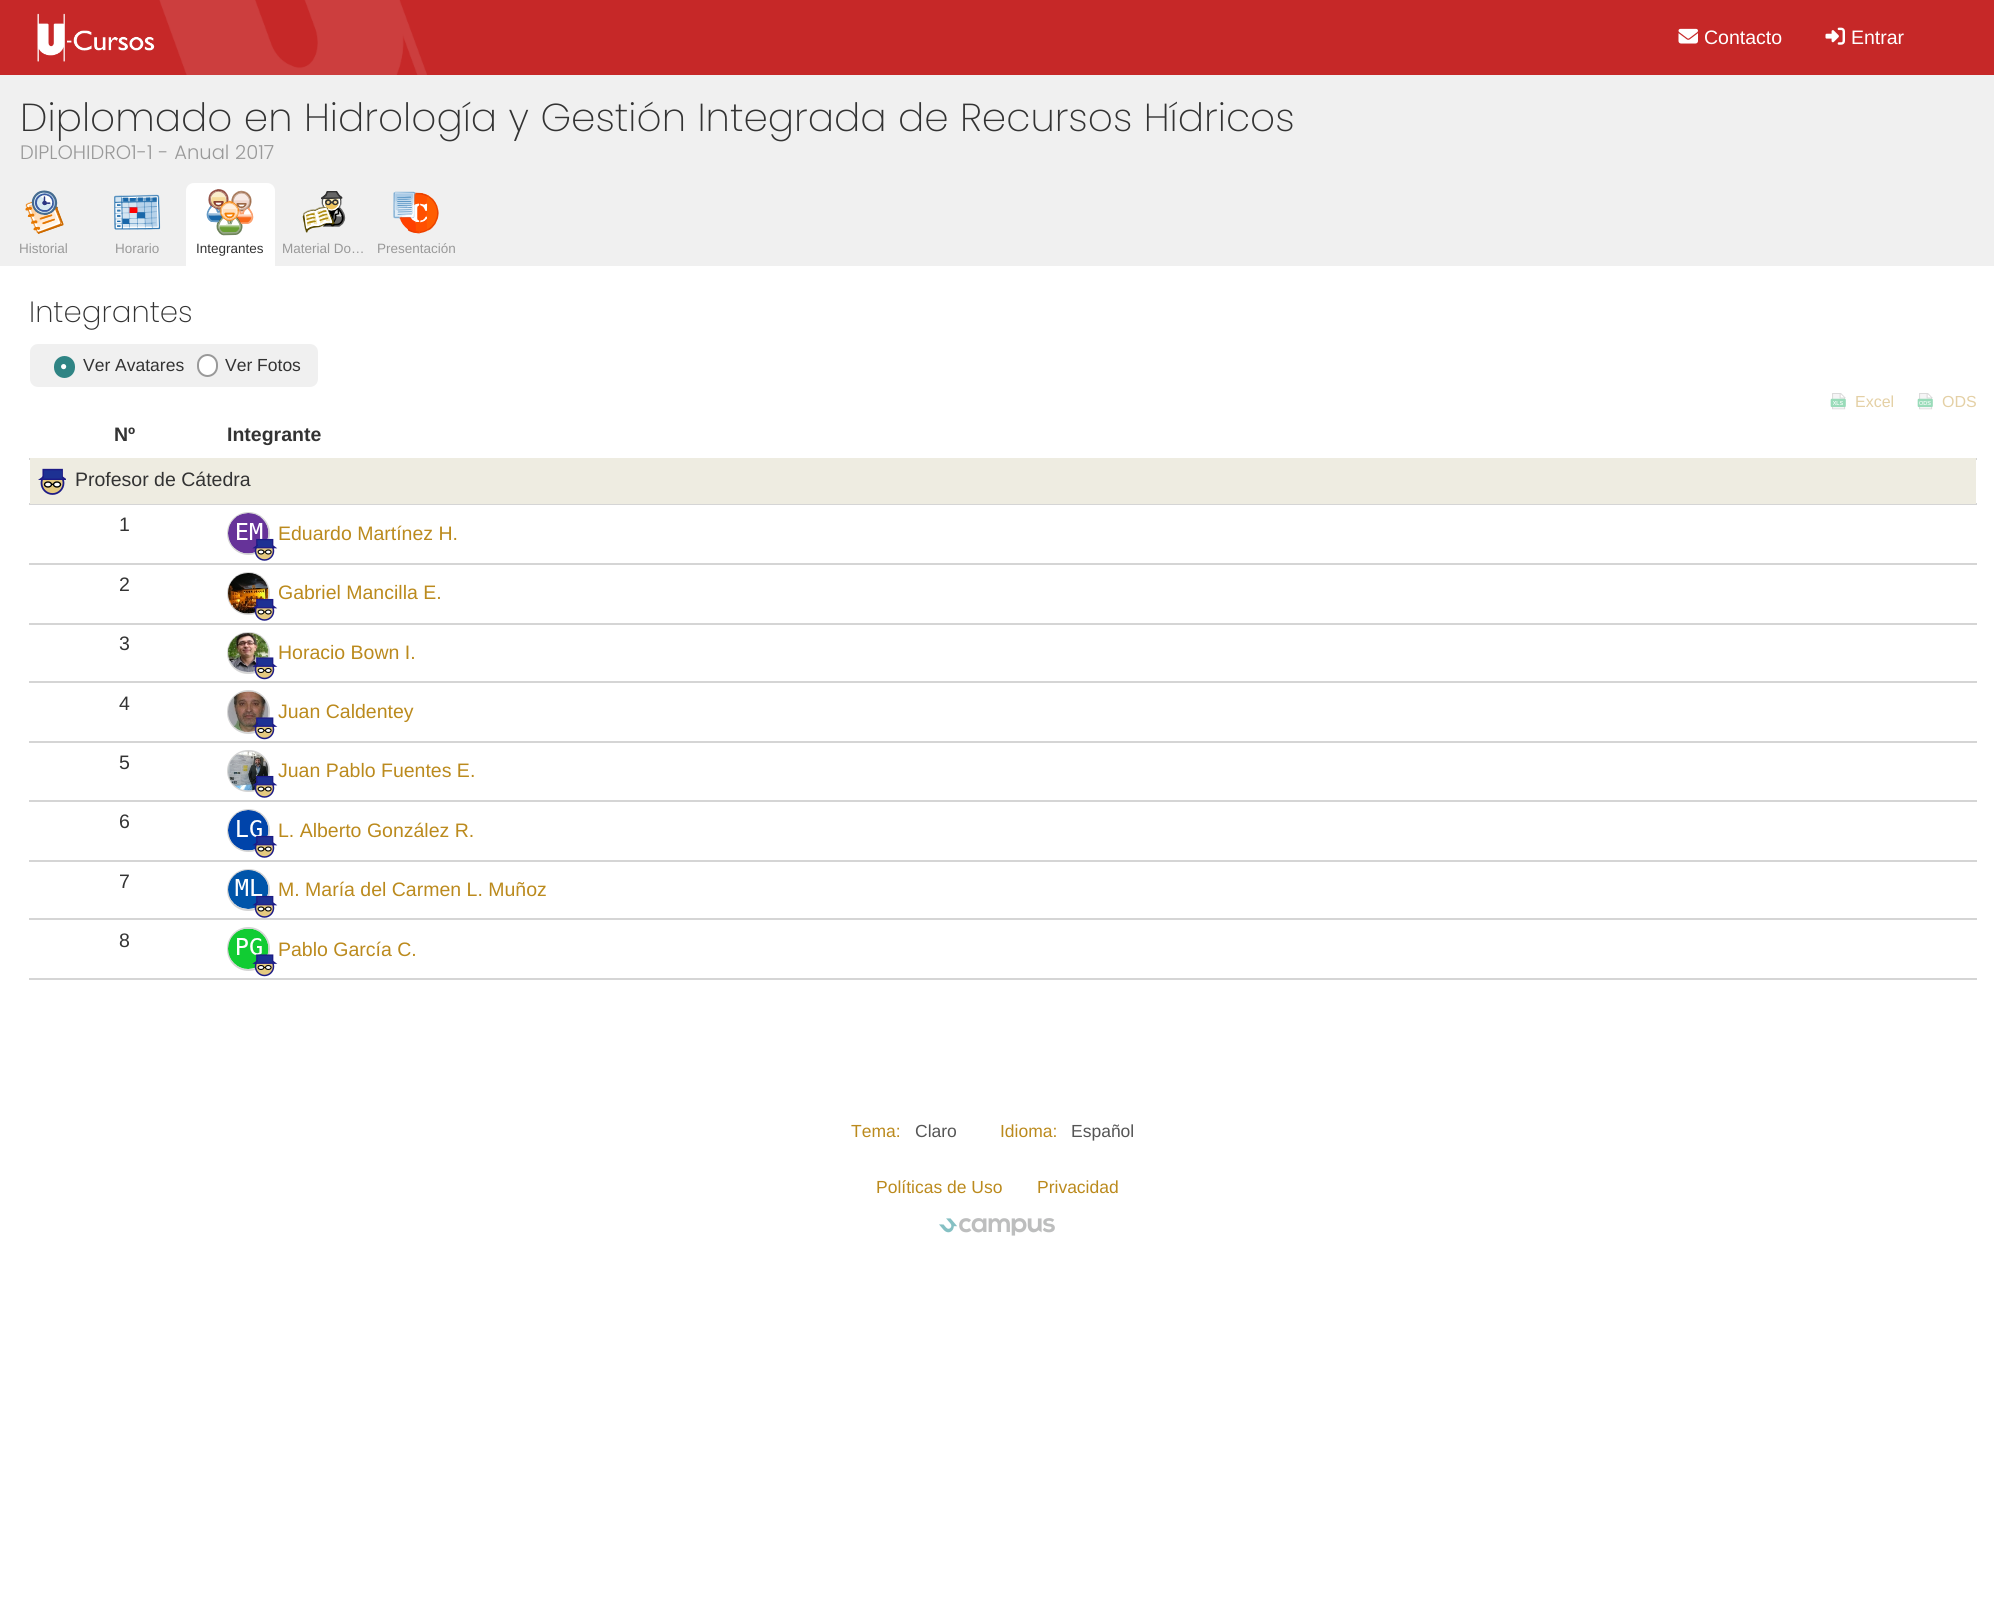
import math
import cairo

surface = cairo.ImageSurface(cairo.FORMAT_RGB24, 1994, 1619)
c = cairo.Context(surface)
options = cairo.FontOptions()
options.set_hint_metrics(cairo.HINT_METRICS_OFF)
options.set_hint_style(cairo.HINT_STYLE_NONE)
c.set_font_options(options)
c.set_miter_limit(4)
def C(code):
 c.set_source_rgb(*(v / 255 for v in bytes.fromhex(code[-6:])))
def F(family, size, italic, bold):
 c.select_font_face(family, cairo.FONT_SLANT_ITALIC if italic else cairo.FONT_SLANT_NORMAL, cairo.FONT_WEIGHT_BOLD if bold else cairo.FONT_WEIGHT_NORMAL)
 c.set_font_size(size)
def T(x, y, s):
 c.move_to(x, y)
 c.show_text(s)
def R(x, y, w, h):
 c.rectangle(x, y, w, h)
 c.fill()
def Q(x, y, w, h, r):
 c.new_sub_path()
 for i, (u, v) in enumerate([(x + w - r, y + h - r), (x + r, y + h - r), (x + r, y + r), (x + w - r, y + r)]):
  c.arc(u, v, r, i * math.pi / 2, (i + 1) * math.pi / 2)
 c.close_path()
def I(path, x, y, w, h):
 c.save()
 c.set_source_surface(cairo.ImageSurface.create_from_png(path), x, y)
 c.rectangle(x, y, w, h)
 c.fill()
 c.restore()
C('ffffff')
c.paint()
C('c62828')
R(0,0,1994,75)
I('1.png',37,13,118,49)
I('2.png',159,0,268,75)
I('3.png',1678,28,20,16)
F('Liberation Sans',19.5,0,0)
C('ffffff')
T(1704,44,'Contacto')
I('4.png',1825,27,20,18)
T(1851,44,'Entrar')
C('f0f0f0')
R(0,75,1994,191)
F('Poppins ExtraLight',39,0,0)
C('333333')
T(20,131,'Diplomado en Hidrología y Gestión Integrada de Recursos Hídricos')
F('Poppins Light',19.5,0,0)
C('999999')
T(20,159,'DIPLOHIDRO1-1 - Anual 2017')
I('5.png',25,190,39,44)
F('Liberation Sans',13.5,0,0)
T(19,253,'Historial')
I('6.png',114,194,47,36)
T(115,253,'Horario')
C('ffffff')
c.new_path()
c.move_to(194,183)
c.line_to(267,183)
c.curve_to(271.5,183,275,186.5,275,191)
c.line_to(275,266)
c.line_to(186,266)
c.line_to(186,191)
c.curve_to(186,186.5,189.5,183,194,183)
c.close_path()
c.fill()
I('7.png',206,189,48,47)
C('333333')
T(196,253,'Integrantes')
I('8.png',302,191,44,42)
C('999999')
T(282,253,'Material Do…')
I('9.png',393,191,46,43)
T(377,253,'Presentación')
F('Poppins ExtraLight',29.25,0,0)
C('333333')
T(29,322,'Integrantes')
C('f0f0f0')
Q(30,344,288,43,8)
c.fill()
C('2f8484')
Q(55,357,19,20,9.5)
c.fill_preserve()
c.stroke()
F('Liberation Sans',12,0,0)
C('ffffff')
T(60,370,'●')
F('Liberation Sans',17.5,0,0)
C('333333')
T(83,371,'Ver Avatares')
C('ffffff')
Q(198,355,19,21,9.5)
c.fill_preserve()
C('999999')
c.stroke()
C('333333')
T(225,371,'Ver Fotos')
I('10.png',1830,393,16,17)
F('Liberation Sans',16,0,0)
C('e4d0a5')
T(1855,407,'Excel')
I('11.png',1917,393,16,17)
T(1942,407,'ODS')
C('d5d5d5')
R(29,458,1948,2)
F('Liberation Sans',19.5,0,1)
C('333333')
T(114,441,'Nº')
T(227,441,'Integrante')
C('d5d5d5')
R(29,503,1948,2)
C('eeece1')
R(30,458,1946,46)
I('12.png',38,468,28,27)
F('Liberation Sans',19.5,0,0)
C('333333')
T(75,486,'Profesor de Cátedra')
C('d5d5d5')
R(29,563,1948,2)
C('333333')
T(119,531,'1')
c.new_path()
c.arc(248.5,533.5,20.5,0,2 * math.pi)
C('d5d5d5')
c.stroke()
I('13.png',228,513,41,41)
I('14.png',252,538,26,23)
C('bb8a1d')
T(278,540,'Eduardo Martínez H.')
C('d5d5d5')
R(29,623,1948,2)
C('333333')
T(119,591,'2')
c.new_path()
c.arc(248.5,593.5,20.5,0,2 * math.pi)
C('d5d5d5')
c.stroke()
I('15.png',228,573,41,41)
I('16.png',252,598,26,23)
C('bb8a1d')
T(278,599,'Gabriel Mancilla E.')
C('d5d5d5')
R(29,681,1948,2)
C('333333')
T(119,650,'3')
Q(228,633,41,40,20)
C('d5d5d5')
c.stroke()
I('17.png',228,633,41,39)
I('18.png',252,657,26,23)
C('bb8a1d')
T(278,659,'Horacio Bown I.')
C('d5d5d5')
R(29,741,1948,2)
C('333333')
T(119,710,'4')
Q(228,691,41,42,20.5)
C('d5d5d5')
c.stroke()
I('19.png',228,691,41,41)
C('bb8a1d')
T(278,718,'Juan Caldentey')
I('20.png',252,717,26,23)
C('d5d5d5')
R(29,800,1948,2)
C('333333')
T(119,769,'5')
Q(228,751,41,40,20)
C('d5d5d5')
c.stroke()
I('21.png',228,751,41,40)
C('bb8a1d')
T(278,777,'Juan Pablo Fuentes E.')
I('22.png',252,775,26,23)
C('d5d5d5')
R(29,860,1948,2)
C('333333')
T(119,828,'6')
c.new_path()
c.arc(248.5,830.5,20.5,0,2 * math.pi)
C('d5d5d5')
c.stroke()
I('23.png',228,810,41,41)
I('24.png',252,835,26,23)
C('bb8a1d')
T(278,837,'L. Alberto González R.')
C('d5d5d5')
R(29,918,1948,2)
C('333333')
T(119,888,'7')
Q(228,870,41,40,20)
C('d5d5d5')
c.stroke()
I('25.png',228,870,41,39)
I('26.png',252,895,26,23)
C('bb8a1d')
T(278,896,'M. María del Carmen L. Muñoz')
C('d5d5d5')
R(29,978,1948,2)
C('333333')
T(119,947,'8')
Q(228,928,41,42,20.5)
C('d5d5d5')
c.stroke()
I('27.png',228,929,41,40)
I('28.png',252,954,26,23)
C('bb8a1d')
T(278,956,'Pablo García C.')
F('Liberation Sans',17.5,0,0)
T(851,1137,'Tema:')
C('555555')
T(915,1137,'Claro')
C('bb8a1d')
T(1000,1137,'Idioma:')
C('555555')
T(1071,1137,'Español')
C('bb8a1d')
T(876,1193,'Políticas de Uso')
T(1037,1193,'Privacidad')
I('29.png',939,1218,116,18)
surface.write_to_png('o.png')
